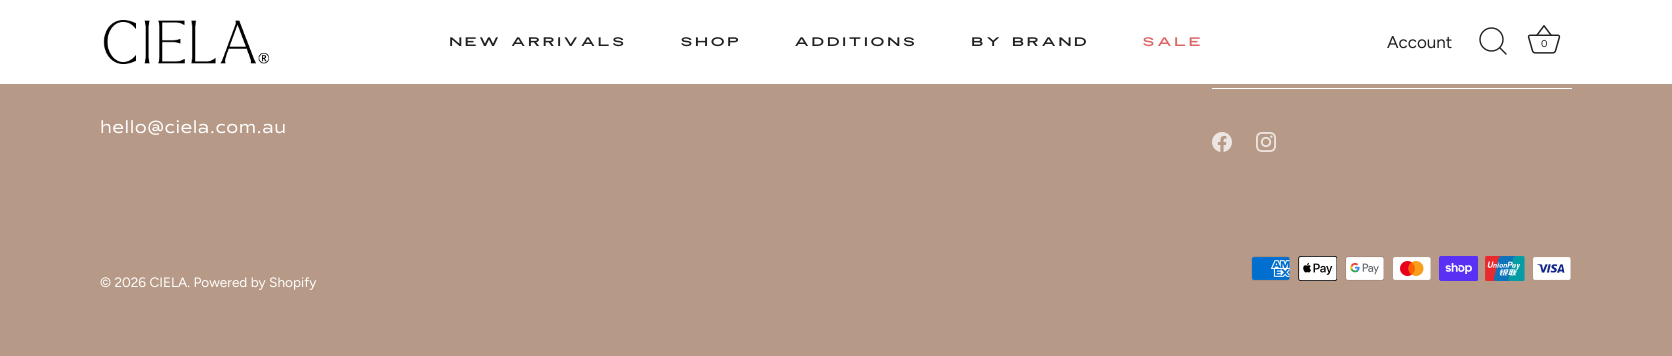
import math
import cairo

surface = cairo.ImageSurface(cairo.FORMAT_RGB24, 1672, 356)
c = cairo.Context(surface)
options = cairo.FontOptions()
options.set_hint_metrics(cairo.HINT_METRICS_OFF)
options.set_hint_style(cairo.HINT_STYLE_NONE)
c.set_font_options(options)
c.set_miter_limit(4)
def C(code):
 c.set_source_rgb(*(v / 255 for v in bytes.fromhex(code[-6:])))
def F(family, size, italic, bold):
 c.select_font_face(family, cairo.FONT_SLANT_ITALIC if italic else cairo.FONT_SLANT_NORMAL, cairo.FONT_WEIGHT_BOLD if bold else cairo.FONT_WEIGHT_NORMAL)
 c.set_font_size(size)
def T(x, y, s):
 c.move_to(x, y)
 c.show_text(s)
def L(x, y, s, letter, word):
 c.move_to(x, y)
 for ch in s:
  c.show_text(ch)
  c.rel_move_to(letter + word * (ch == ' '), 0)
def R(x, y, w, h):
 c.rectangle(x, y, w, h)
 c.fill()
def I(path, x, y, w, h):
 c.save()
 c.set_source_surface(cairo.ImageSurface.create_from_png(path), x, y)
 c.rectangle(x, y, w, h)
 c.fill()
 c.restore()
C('b79987')
c.paint()
C('ffffff')
R(0,0,1672,84)
I('1.png',103,20,166,44)
F('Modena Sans',12,0,0)
C('212121')
L(449,46,'New Arrivals',2,0)
L(680,46,'Shop',2,0)
L(794,46,'Additions',2,0)
L(971,46,'By Brand',2,0)
C('dd6666')
L(1142,46,'Sale',2,0)
F('Figtree',17,0,0)
C('212121')
T(1387,48,'Account')
c.new_path()
c.arc(1491.5,39.5,11.5,0,2 * math.pi)
c.set_line_width(1.4)
c.stroke()
c.new_path()
c.move_to(1506,54)
c.line_to(1500,48)
c.set_line_cap(cairo.LINE_CAP_ROUND)
c.set_line_join(cairo.LINE_JOIN_ROUND)
c.stroke()
I('2.png',1527,25,34,29)
F('Figtree',10,0,0)
T(1541,47,'0')
F('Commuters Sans',18,0,0)
C('ffffff')
L(100,133,'hello@ciela.com.au',.5,0)
R(1212,88,360,1)
I('3.png',1212,132,20,20)
I('4.png',1256,132,20,20)
I('5.png',1251,256,39,25)
I('6.png',1298,256,39,25)
I('7.png',1345,256,39,25)
I('8.png',1393,257,38,23)
I('9.png',1439,256,39,25)
I('10.png',1485,256,40,25)
I('11.png',1533,257,38,23)
F('Figtree',13.6,0,0)
T(100,287,'© 2026 CIELA. Powered by Shopify')
surface.write_to_png('o.png')
